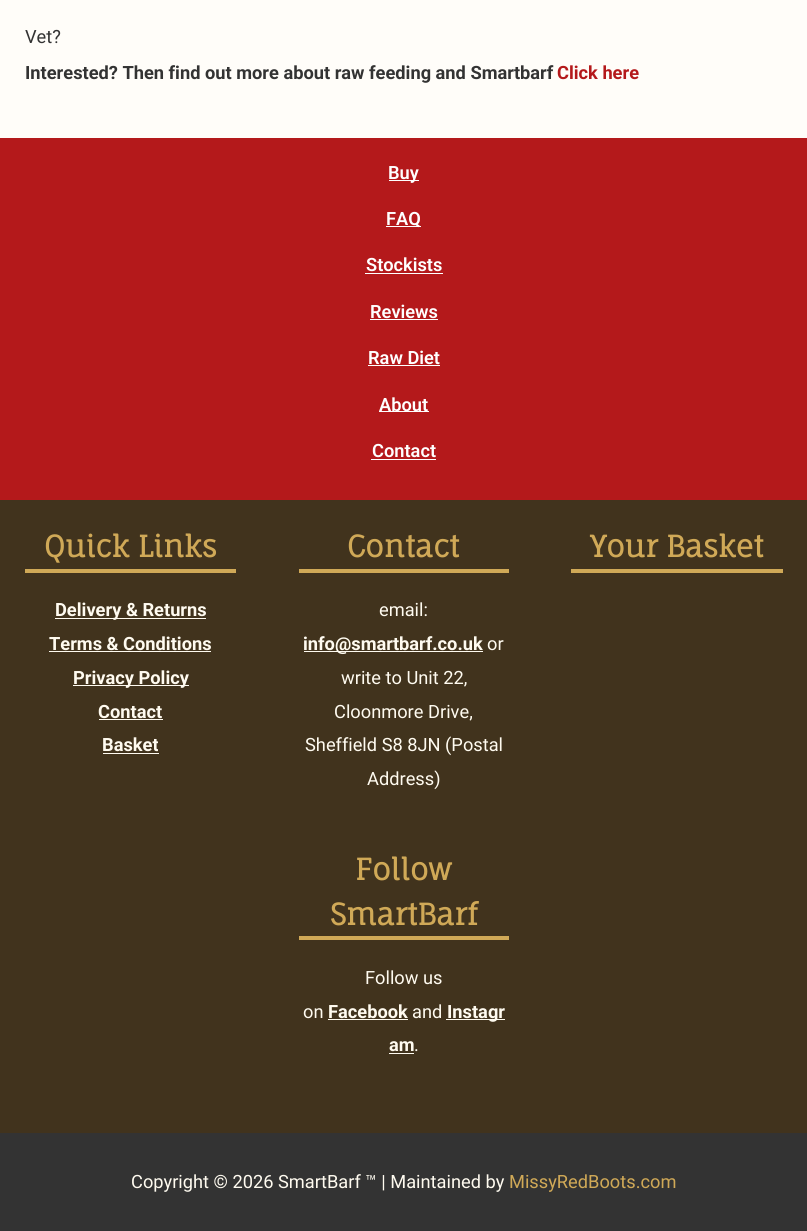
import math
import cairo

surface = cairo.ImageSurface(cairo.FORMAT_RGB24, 807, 1231)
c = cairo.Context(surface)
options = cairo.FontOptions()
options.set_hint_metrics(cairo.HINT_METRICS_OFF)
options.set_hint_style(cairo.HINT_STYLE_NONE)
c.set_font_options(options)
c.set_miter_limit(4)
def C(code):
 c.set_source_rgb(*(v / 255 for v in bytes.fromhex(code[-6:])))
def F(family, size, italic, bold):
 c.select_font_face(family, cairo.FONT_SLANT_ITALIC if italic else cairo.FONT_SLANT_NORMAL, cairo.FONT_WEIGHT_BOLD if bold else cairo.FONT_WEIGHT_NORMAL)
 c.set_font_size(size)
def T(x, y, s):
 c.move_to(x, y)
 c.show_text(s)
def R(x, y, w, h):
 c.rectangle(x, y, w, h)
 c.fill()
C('fffdf9')
c.paint()
F('Roboto',18.25,0,0)
C('333333')
T(25,43,'Vet?')
F('Roboto',18.25,0,1)
T(25,79,'Interested? Then find out more about raw feeding and Smartbarf')
C('b4191b')
T(557,79,'Click here')
R(0,138,807,362)
C('ffffff')
R(389,180,30,1)
F('Roboto SemiBold',18.25,0,0)
T(388,179,'Buy')
R(386,226,35,1)
T(386,225,'FAQ')
T(366,271,'Stockists')
R(365,273,78,1)
T(370,318,'Reviews')
R(370,319,68,1)
T(368,364,'Raw Diet')
R(368,365,72,1)
R(379,411,50,1)
T(379,411,'About')
T(372,457,'Contact')
R(371,459,65,1)
C('41331d')
R(0,500,807,633)
C('d0a957')
R(25,569,211,4)
F('Fauna One',29.5,0,1)
T(44,557,'Quick Links')
C('fffbf0')
R(55,618,151,1)
F('Roboto',18.25,0,1)
T(55,616,'Delivery & Returns')
T(49,650,'Terms & Conditions')
R(49,651,162,1)
R(73,685,116,1)
T(73,684,'Privacy Policy')
T(98,718,'Contact')
R(99,719,64,1)
T(102,751,'Basket')
R(103,753,56,1)
C('d0a957')
R(299,569,210,4)
F('Fauna One',29.5,0,1)
T(347,557,'Contact')
F('Roboto',18.25,0,0)
C('fffbf0')
T(379,616,'email:')
R(304,651,179,1)
F('Roboto',18.25,0,1)
T(303,650,'info@smartbarf.co.uk')
F('Roboto',18.25,0,0)
T(487,650,'or')
T(341,684,'write to Unit 22,')
T(334,718,'Cloonmore Drive,')
T(305,751,'Sheffield S8 8JN (Postal')
T(367,785,'Address)')
C('d0a957')
R(299,936,210,4)
F('Fauna One',29.5,0,1)
T(355,880,'Follow')
T(330,925,'SmartBarf')
F('Roboto',18.25,0,0)
C('fffbf0')
T(365,984,'Follow us')
T(303,1018,'on')
F('Roboto',18.25,0,1)
T(328,1018,'Facebook')
R(328,1019,80,1)
F('Roboto',18.25,0,0)
T(412,1018,'and')
R(446,1019,59,1)
F('Roboto',18.25,0,1)
T(447,1018,'Instagr')
T(389,1051,'am')
R(389,1053,25,1)
F('Roboto',18.25,0,0)
T(414,1051,'.')
C('d0a957')
R(571,569,212,4)
F('Fauna One',29.5,0,1)
T(590,557,'Your Basket')
C('333333')
R(0,1133,807,98)
F('Roboto',18.25,0,0)
C('fffbf0')
T(131,1188,'Copyright © 2026 SmartBarf ™ | Maintained by')
C('d0a957')
T(509,1188,'MissyRedBoots.com')
surface.write_to_png('o.png')
